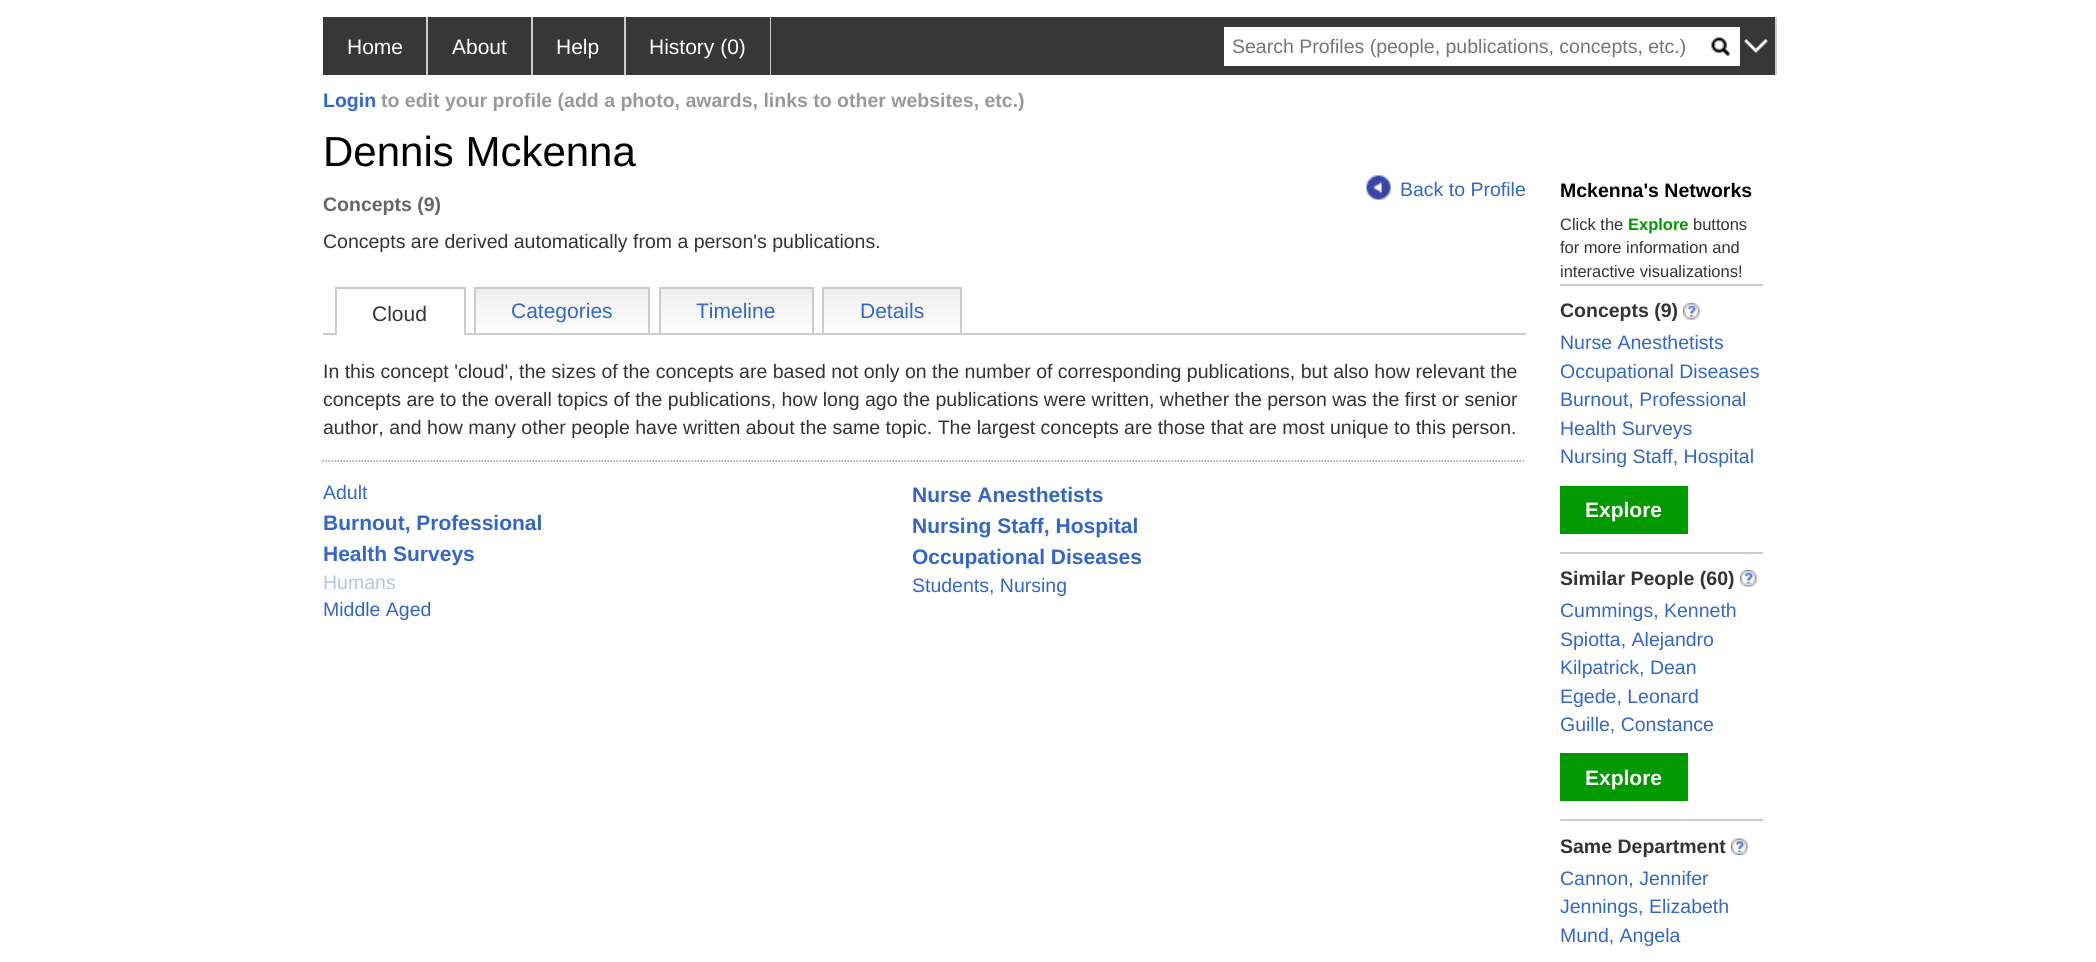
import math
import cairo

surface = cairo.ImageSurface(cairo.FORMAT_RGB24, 2096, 962)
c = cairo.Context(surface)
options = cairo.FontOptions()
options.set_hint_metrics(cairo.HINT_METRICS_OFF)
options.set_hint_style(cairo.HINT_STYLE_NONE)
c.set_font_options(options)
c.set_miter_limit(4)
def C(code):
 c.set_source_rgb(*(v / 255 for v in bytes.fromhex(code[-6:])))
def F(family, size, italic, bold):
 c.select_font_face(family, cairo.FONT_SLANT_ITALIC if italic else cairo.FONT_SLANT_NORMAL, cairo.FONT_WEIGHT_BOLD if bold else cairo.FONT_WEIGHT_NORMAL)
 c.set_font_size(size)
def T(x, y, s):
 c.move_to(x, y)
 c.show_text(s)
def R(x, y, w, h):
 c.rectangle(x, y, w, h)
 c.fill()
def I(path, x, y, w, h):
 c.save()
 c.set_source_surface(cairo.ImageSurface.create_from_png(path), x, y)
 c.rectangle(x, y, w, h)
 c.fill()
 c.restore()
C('ffffff')
c.paint()
C('383737')
R(323,17,1452,58)
C('cccccc')
R(426,17,2,58)
F('Liberation Sans',21,0,0)
C('ffffff')
T(347,54,'Home')
C('cccccc')
R(531,17,2,58)
C('ffffff')
T(452,54,'About')
C('cccccc')
R(624,17,2,58)
C('ffffff')
T(556,54,'Help')
C('cccccc')
R(770,17,1,58)
C('ffffff')
T(649,54,'History (0)')
R(1224,27,516,39)
F('Liberation Sans',19.5,0,0)
C('757575')
T(1232,53,'Search Profiles (people, publications, concepts, etc.)')
I('1.png',1711,37,19,19)
C('cccccc')
R(1775,17,2,58)
I('2.png',1744,39,24,15)
F('Liberation Sans',19.5,0,1)
C('3366cc')
T(323,107,'Login')
C('999999')
T(381,107,'to edit your profile (add a photo, awards, links to other websites, etc.)')
F('Liberation Sans',42,0,0)
C('000000')
T(323,166,'Dennis Mckenna')
I('3.png',1366,175,25,25)
F('Liberation Sans',19.5,0,0)
C('3366cc')
T(1400,196,'Back to Profile')
F('Liberation Sans',19.5,0,1)
C('666666')
T(323,211,'Concepts (9)')
F('Liberation Sans',19.5,0,0)
C('333333')
T(323,248,'Concepts are derived automatically from a person\'s publications.')
C('cccccc')
R(323,333,1203,2)
C('ffffff')
R(337,333,127,2)
C('cccccc')
R(335,287,130,2)
R(464,287,2,48)
R(335,287,2,48)
F('Liberation Sans',21,0,0)
C('333333')
T(372,321,'Cloud')
gradient = cairo.LinearGradient(562,288,562,333)
gradient.add_color_stop_rgba(0,0.929,0.929,0.929,1)
gradient.add_color_stop_rgba(1,1,1,1,1)
c.set_source(gradient)
R(476,289,172,38)
C('cccccc')
R(474,287,176,2)
R(648,287,2,46)
R(474,287,2,46)
C('3366cc')
T(511,318,'Categories')
gradient = cairo.LinearGradient(736,288,736,333)
gradient.add_color_stop_rgba(0,0.929,0.929,0.929,1)
gradient.add_color_stop_rgba(1,1,1,1,1)
c.set_source(gradient)
R(661,289,151,38)
C('cccccc')
R(659,287,154,2)
R(812,287,2,46)
R(659,287,2,46)
C('3366cc')
T(696,318,'Timeline')
gradient = cairo.LinearGradient(892,288,892,333)
gradient.add_color_stop_rgba(0,0.929,0.929,0.929,1)
gradient.add_color_stop_rgba(1,1,1,1,1)
c.set_source(gradient)
R(824,289,136,38)
C('cccccc')
R(822,287,140,2)
R(960,287,2,46)
R(822,287,2,46)
C('3366cc')
T(860,318,'Details')
c.new_path()
c.move_to(322.5,461)
c.line_to(1525.5,461)
C('999999')
c.set_line_width(1.5)
c.set_dash([1.5,1.5])
c.stroke()
F('Liberation Sans',19.5,0,0)
C('333333')
T(323,378,'In this concept \'cloud\', the sizes of the concepts are based not only on the number of corresponding publications, but also how relevant the')
T(323,406,'concepts are to the overall topics of the publications, how long ago the publications were written, whether the person was the first or senior')
T(323,434,'author, and how many other people have written about the same topic. The largest concepts are those that are most unique to this person.')
C('3366cc')
T(323,499,'Adult')
F('Liberation Sans',21,0,1)
T(323,530,'Burnout, Professional')
T(323,561,'Health Surveys')
F('Liberation Sans',19.5,0,0)
C('b7c3db')
T(323,589,'Humans')
C('3366cc')
T(323,616,'Middle Aged')
F('Liberation Sans',21,0,1)
T(912,502,'Nurse Anesthetists')
T(912,533,'Nursing Staff, Hospital')
T(912,564,'Occupational Diseases')
F('Liberation Sans',19.5,0,0)
T(912,592,'Students, Nursing')
F('Liberation Sans',19.5,0,1)
C('000000')
T(1560,197,'Mckenna\'s Networks')
F('Liberation Sans',16.5,0,0)
C('333333')
T(1560,230,'Click the')
F('Liberation Sans',16.5,0,1)
C('009900')
T(1628,230,'Explore')
F('Liberation Sans',16.5,0,0)
C('333333')
T(1693,230,'buttons')
T(1560,253,'for more information and')
T(1560,277,'interactive visualizations!')
C('cccccc')
R(1560,284,203,2)
F('Liberation Sans',19.5,0,1)
C('333333')
T(1560,317,'Concepts (9)')
I('4.png',1683,303,17,17)
F('Liberation Sans',19.5,0,0)
C('3366cc')
T(1560,349,'Nurse Anesthetists')
T(1560,378,'Occupational Diseases')
T(1560,406,'Burnout, Professional')
T(1560,435,'Health Surveys')
T(1560,463,'Nursing Staff, Hospital')
C('009900')
R(1560,486,128,48)
F('Liberation Sans',21,0,1)
C('ffffff')
T(1585,517,'Explore')
C('cccccc')
R(1560,552,203,2)
F('Liberation Sans',19.5,0,1)
C('333333')
T(1560,585,'Similar People (60)')
I('4.png',1740,570,17,17)
F('Liberation Sans',19.5,0,0)
C('3366cc')
T(1560,617,'Cummings, Kenneth')
T(1560,646,'Spiotta, Alejandro')
T(1560,674,'Kilpatrick, Dean')
T(1560,703,'Egede, Leonard')
T(1560,731,'Guille, Constance')
C('009900')
R(1560,753,128,48)
F('Liberation Sans',21,0,1)
C('ffffff')
T(1585,785,'Explore')
C('cccccc')
R(1560,819,203,2)
F('Liberation Sans',19.5,0,1)
C('333333')
T(1560,853,'Same Department')
I('5.png',1731,838,17,17)
F('Liberation Sans',19.5,0,0)
C('3366cc')
T(1560,885,'Cannon, Jennifer')
T(1560,913,'Jennings, Elizabeth')
T(1560,942,'Mund, Angela')
surface.write_to_png('o.png')
